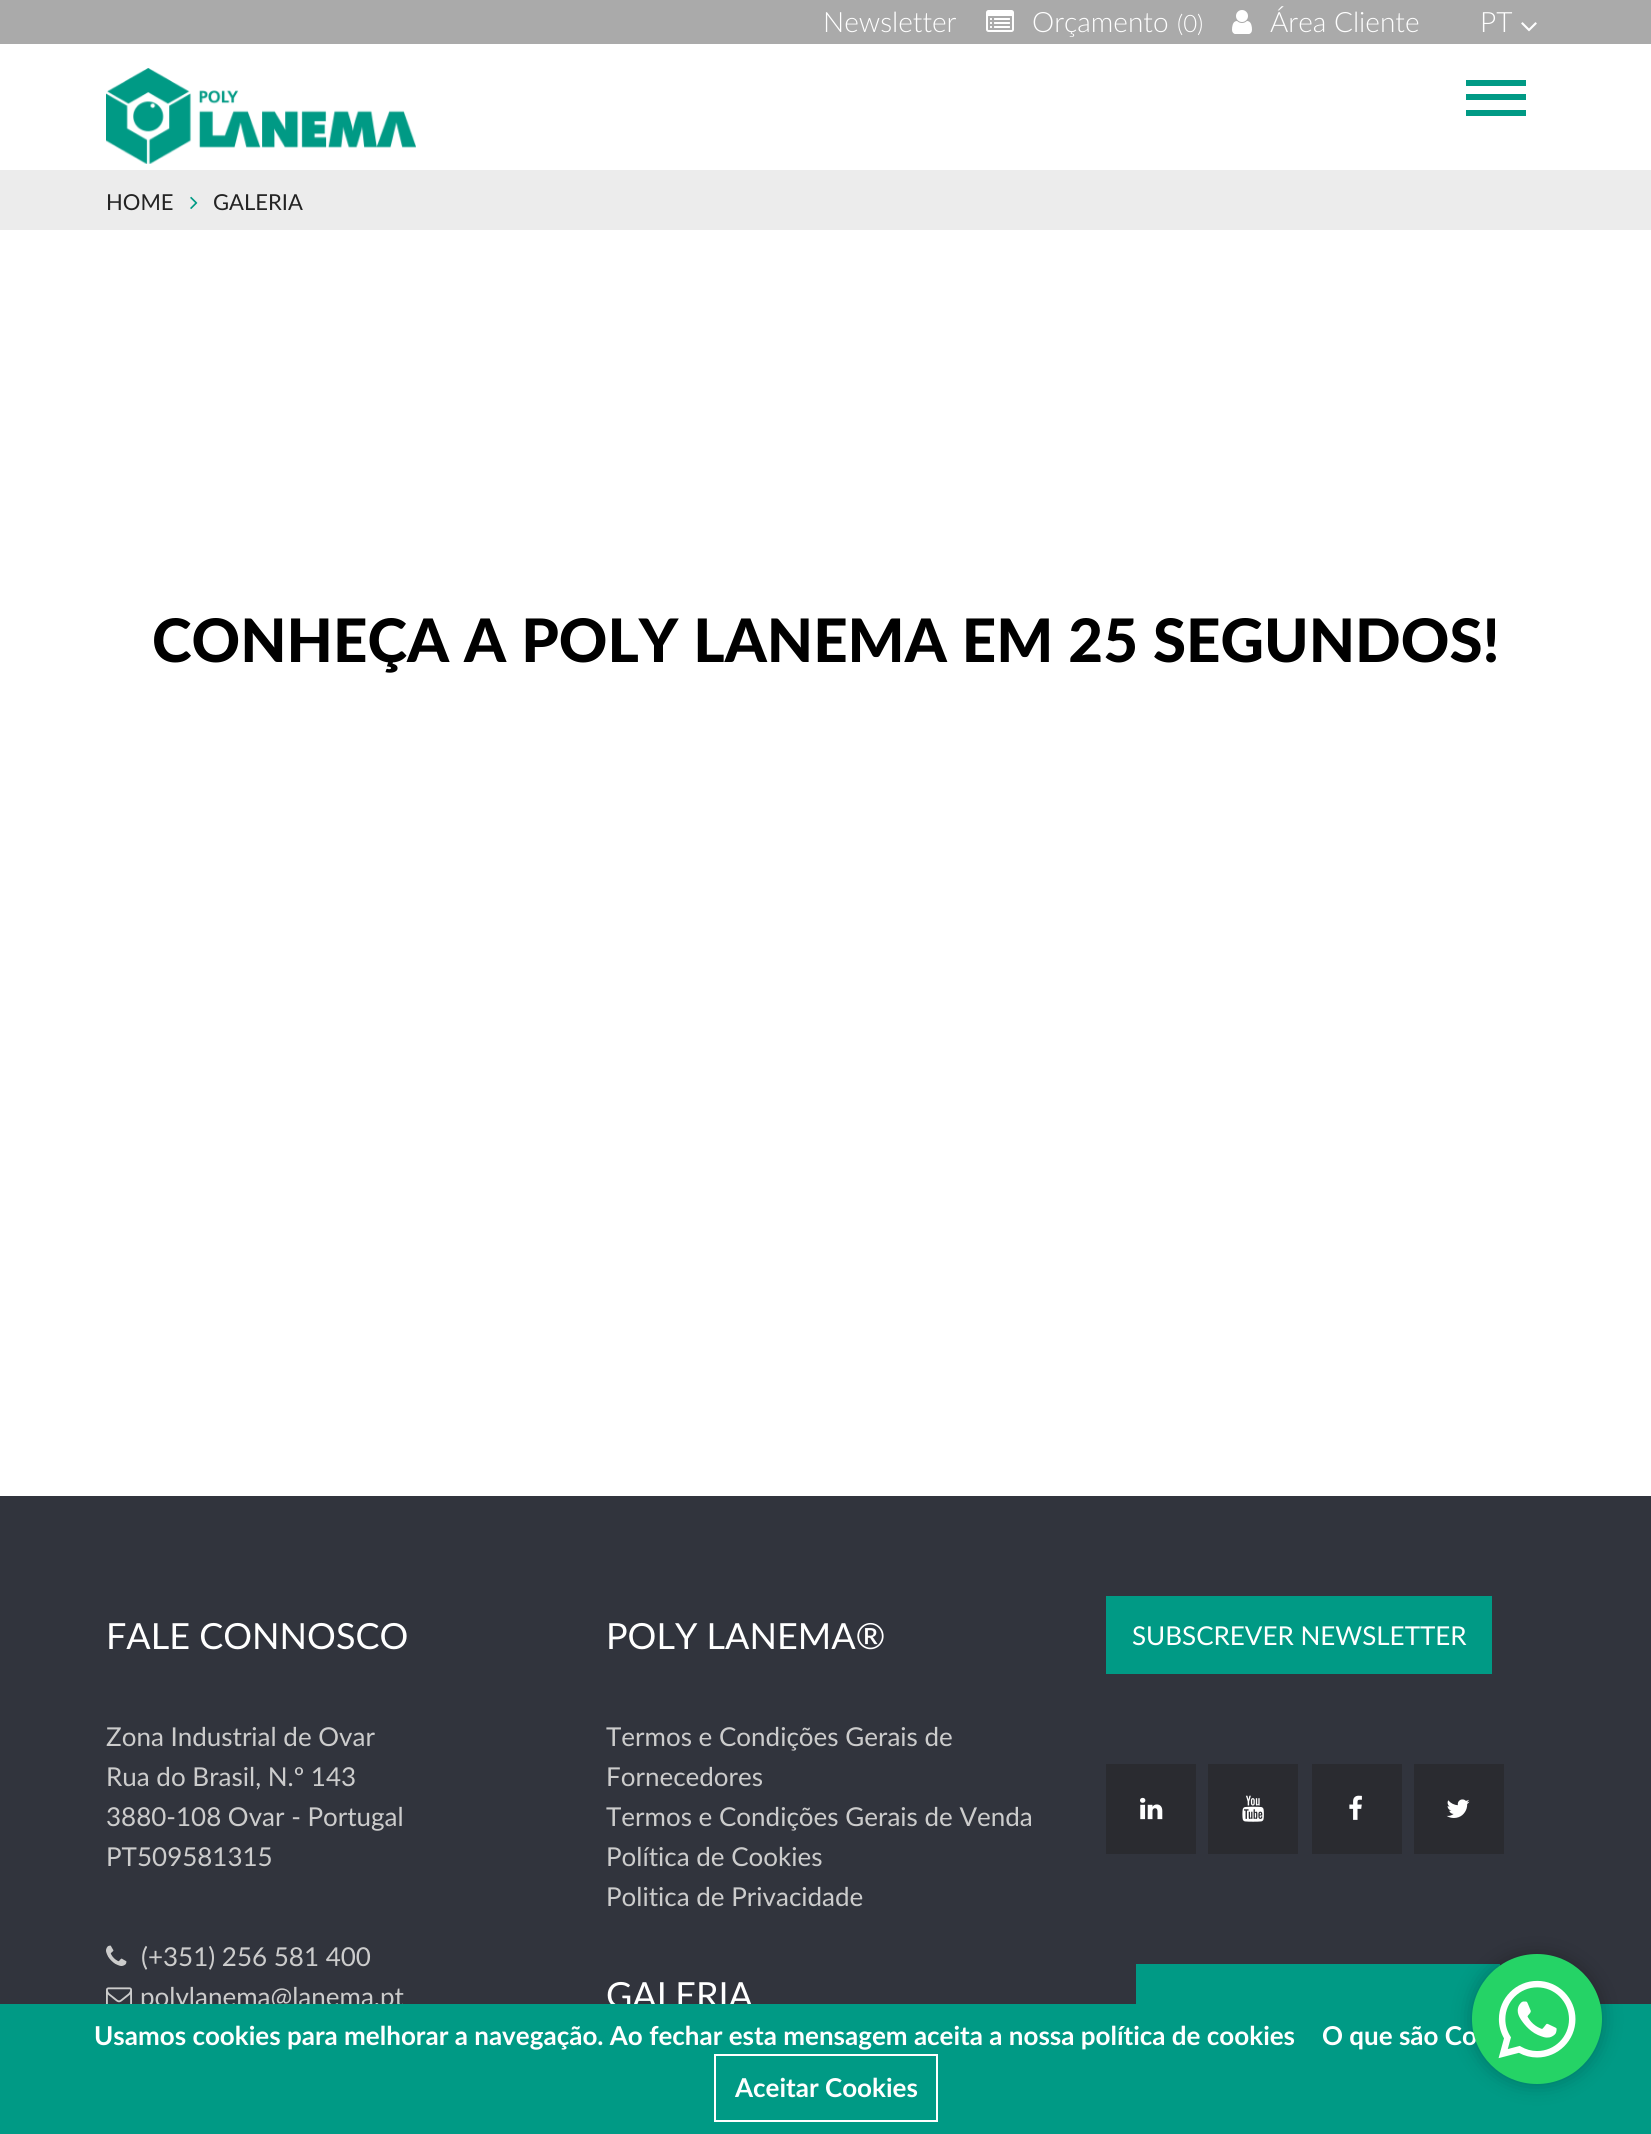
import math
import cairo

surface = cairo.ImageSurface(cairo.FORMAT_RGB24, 1651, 2134)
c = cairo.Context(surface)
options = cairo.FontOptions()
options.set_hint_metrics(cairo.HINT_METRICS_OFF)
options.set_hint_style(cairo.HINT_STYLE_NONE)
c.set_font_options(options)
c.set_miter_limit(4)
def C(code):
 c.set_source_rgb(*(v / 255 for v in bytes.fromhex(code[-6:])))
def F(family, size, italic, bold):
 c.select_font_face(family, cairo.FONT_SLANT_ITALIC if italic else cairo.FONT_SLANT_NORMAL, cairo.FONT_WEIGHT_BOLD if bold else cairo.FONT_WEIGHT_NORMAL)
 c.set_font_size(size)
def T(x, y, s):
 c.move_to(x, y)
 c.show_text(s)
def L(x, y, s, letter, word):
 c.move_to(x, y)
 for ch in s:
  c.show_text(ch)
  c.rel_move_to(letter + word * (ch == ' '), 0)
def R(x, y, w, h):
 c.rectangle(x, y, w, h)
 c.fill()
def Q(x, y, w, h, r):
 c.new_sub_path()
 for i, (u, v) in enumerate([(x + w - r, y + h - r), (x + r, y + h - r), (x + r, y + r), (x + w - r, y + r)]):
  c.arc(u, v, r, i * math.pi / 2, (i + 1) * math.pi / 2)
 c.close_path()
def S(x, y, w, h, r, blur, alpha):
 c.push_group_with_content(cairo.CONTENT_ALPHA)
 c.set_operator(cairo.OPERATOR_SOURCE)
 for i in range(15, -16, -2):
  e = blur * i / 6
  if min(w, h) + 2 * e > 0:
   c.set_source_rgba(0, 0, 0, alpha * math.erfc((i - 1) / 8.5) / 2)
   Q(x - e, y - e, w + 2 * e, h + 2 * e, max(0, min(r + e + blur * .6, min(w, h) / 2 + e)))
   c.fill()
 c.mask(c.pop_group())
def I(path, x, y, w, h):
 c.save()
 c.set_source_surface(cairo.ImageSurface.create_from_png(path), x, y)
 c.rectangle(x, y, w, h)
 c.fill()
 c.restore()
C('ffffff')
c.paint()
C('aaaaaa')
R(0,0,1651,44)
F('Lato Light',28,0,0)
C('ffffff')
T(823,32,'Newsletter')
I('1.png',986,10,28,22)
T(1032,32,'Orçamento')
F('Lato Light',24,0,0)
T(1177,32,'(0)')
I('2.png',1232,10,20,24)
F('Lato Light',28,0,0)
T(1270,32,'Área Cliente')
T(1480,32,'PT')
I('3.png',1521,22,16,10)
I('4.png',106,68,310,96)
C('009a85')
R(1466,94,60,6)
R(1466,80,60,6)
R(1466,110,60,6)
C('ececec')
R(0,170,1651,60)
F('Lato',22,0,0)
C('232323')
T(106,210,'HOME')
I('5.png',190,196,8,13)
T(213,210,'GALERIA')
F('Lato Black',60,0,0)
C('000000')
L(152,662,'CONHEÇA A POLY LANEMA EM 25 SEGUNDOS!',0,.75)
C('31343d')
R(0,1496,1651,508)
F('Lato',36,0,0)
C('ffffff')
T(106,1649,'FALE CONNOSCO')
F('Lato',26,0,0)
C('cccccc')
T(106,1746,'Zona Industrial de Ovar')
T(106,1786,'Rua do Brasil, N.º 143')
T(106,1826,'3880-108 Ovar - Portugal')
T(106,1866,'PT509581315')
I('6.png',106,1945,21,21)
T(141,1966,'(+351) 256 581 400')
I('7.png',106,1987,26,17)
T(140,2006,'polylanema@lanema.pt')
F('Lato',36,0,0)
C('ffffff')
T(606,1649,'POLY LANEMA®')
F('Lato',26,0,0)
C('cccccc')
T(606,1746,'Termos e Condições Gerais de')
T(606,1786,'Fornecedores')
T(606,1826,'Termos e Condições Gerais de Venda')
T(606,1866,'Política de Cookies')
T(606,1906,'Politica de Privacidade')
F('Lato',36,0,0)
C('ffffff')
T(606,2008,'GALERIA')
C('009a85')
R(1106,1596,386,78)
F('Lato',26,0,0)
C('ffffff')
T(1132,1645,'SUBSCREVER NEWSLETTER')
C('2a2b30')
R(1106,1764,90,90)
I('8.png',1140,1797,23,23)
R(1208,1764,90,90)
I('9.png',1242,1795,22,27)
R(1312,1764,90,90)
I('10.png',1349,1795,13,25)
R(1414,1764,90,90)
I('11.png',1446,1799,24,19)
C('009a85')
R(1136,1964,364,40)
R(0,2004,1651,130)
C('000000')
S(1472,1954,130,130,65,10,.25)
F('Lato',26,0,1)
C('ffffff')
T(1322,2045,'O que são Co')
I('12.png',1472,1954,130,130)
T(94,2045,'Usamos cookies para melhorar a navegação. Ao fechar esta mensagem aceita a nossa política de cookies')
c.rectangle(715,2055,222,66)
c.stroke()
T(735,2097,'Aceitar Cookies')
surface.write_to_png('o.png')
